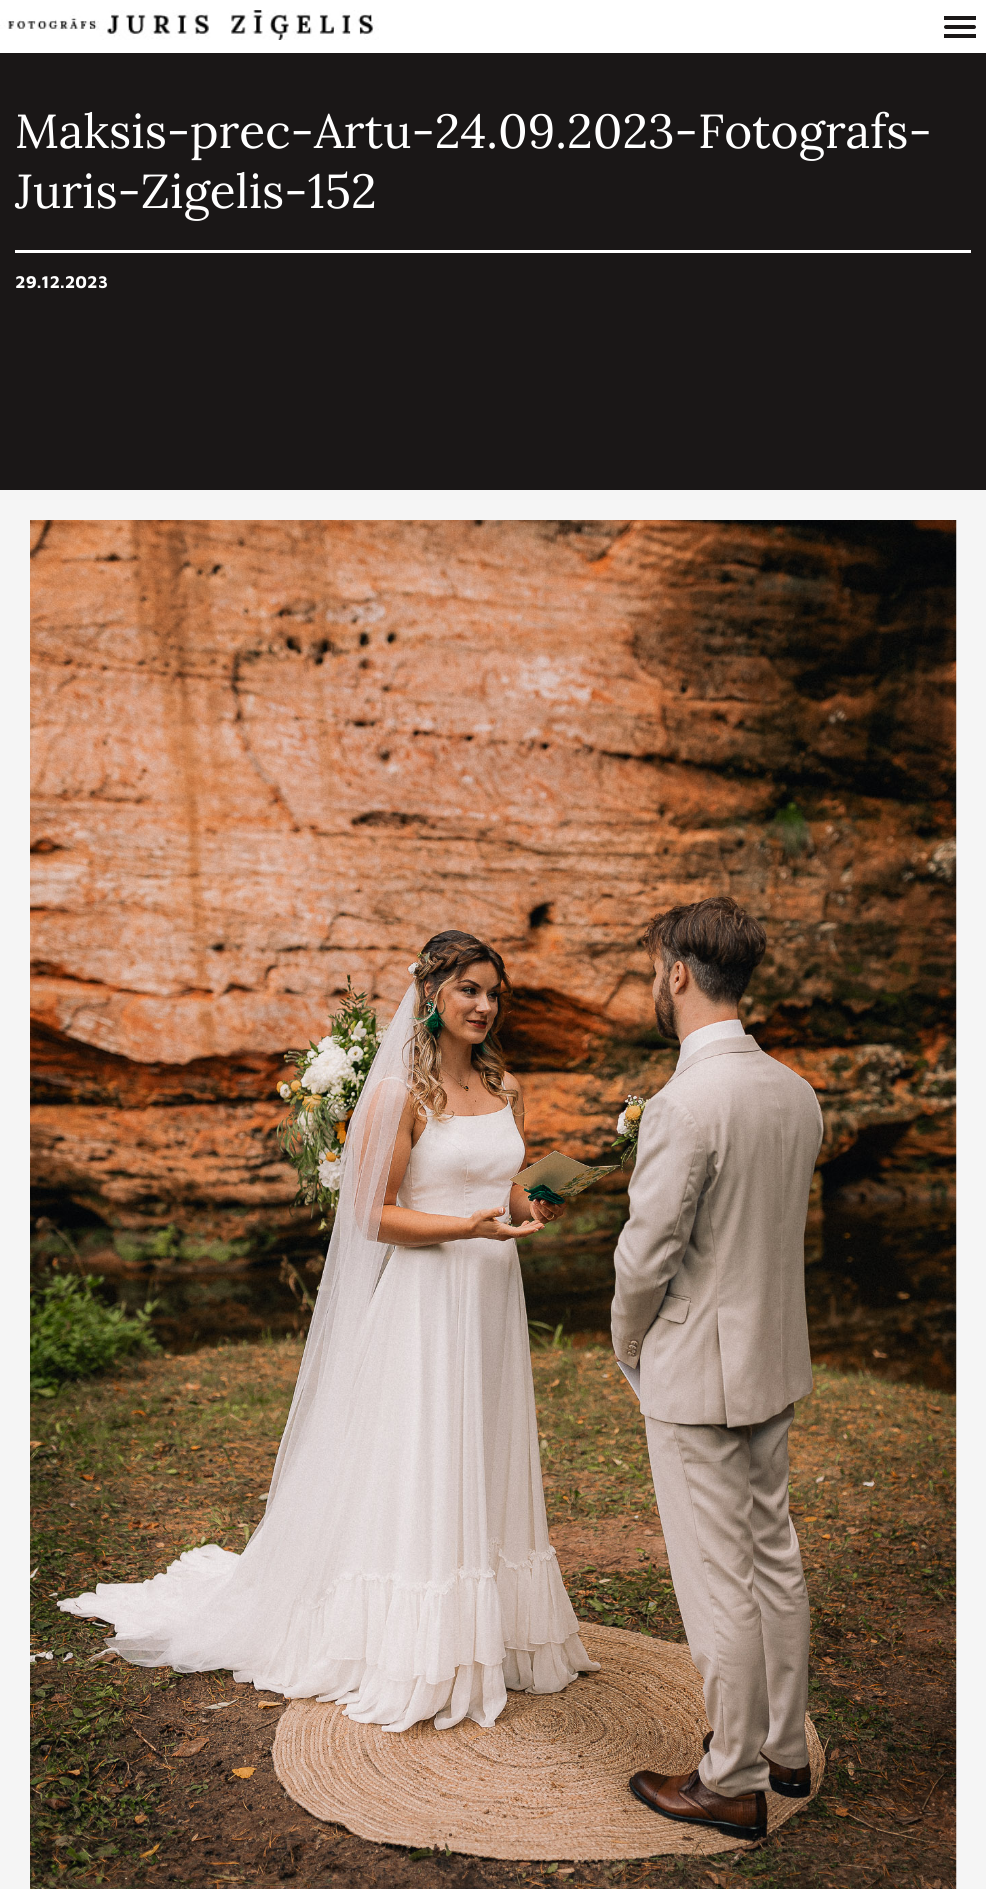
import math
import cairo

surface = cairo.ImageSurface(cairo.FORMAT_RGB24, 986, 1889)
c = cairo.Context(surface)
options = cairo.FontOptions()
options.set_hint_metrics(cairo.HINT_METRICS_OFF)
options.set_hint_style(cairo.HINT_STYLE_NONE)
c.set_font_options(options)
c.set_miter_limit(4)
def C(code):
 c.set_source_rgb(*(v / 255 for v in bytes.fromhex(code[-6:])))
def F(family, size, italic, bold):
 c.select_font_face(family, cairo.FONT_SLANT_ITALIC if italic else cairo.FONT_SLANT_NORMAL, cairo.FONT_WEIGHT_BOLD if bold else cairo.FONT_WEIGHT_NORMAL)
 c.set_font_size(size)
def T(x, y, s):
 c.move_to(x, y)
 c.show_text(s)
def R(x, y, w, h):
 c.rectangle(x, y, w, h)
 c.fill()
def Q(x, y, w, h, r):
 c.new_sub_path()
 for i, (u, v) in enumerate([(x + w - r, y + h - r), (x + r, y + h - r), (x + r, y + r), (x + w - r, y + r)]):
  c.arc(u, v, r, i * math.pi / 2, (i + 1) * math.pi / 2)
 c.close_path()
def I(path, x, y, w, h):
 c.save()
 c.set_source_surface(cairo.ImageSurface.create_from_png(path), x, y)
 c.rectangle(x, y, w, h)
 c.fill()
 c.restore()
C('f5f5f5')
c.paint()
C('ffffff')
R(0,0,986,53)
I('1.png',0,10,379,30)
C('1a1717')
Q(944,25,32,4,2)
c.fill()
R(944,16,32,4)
R(944,34,32,4)
R(0,53,986,437)
C('ffffff')
R(15,250,956,3)
F('Lora',47.75,0,0)
T(15,148,'Maksis-prec-Artu-24.09.2023-Fotografs-')
T(15,208,'Juris-Zigelis-152')
F('Maven Pro',17.5,0,1)
T(15,288,'29.12.2023')
I('2.png',30,520,927,1369)
surface.write_to_png('o.png')
